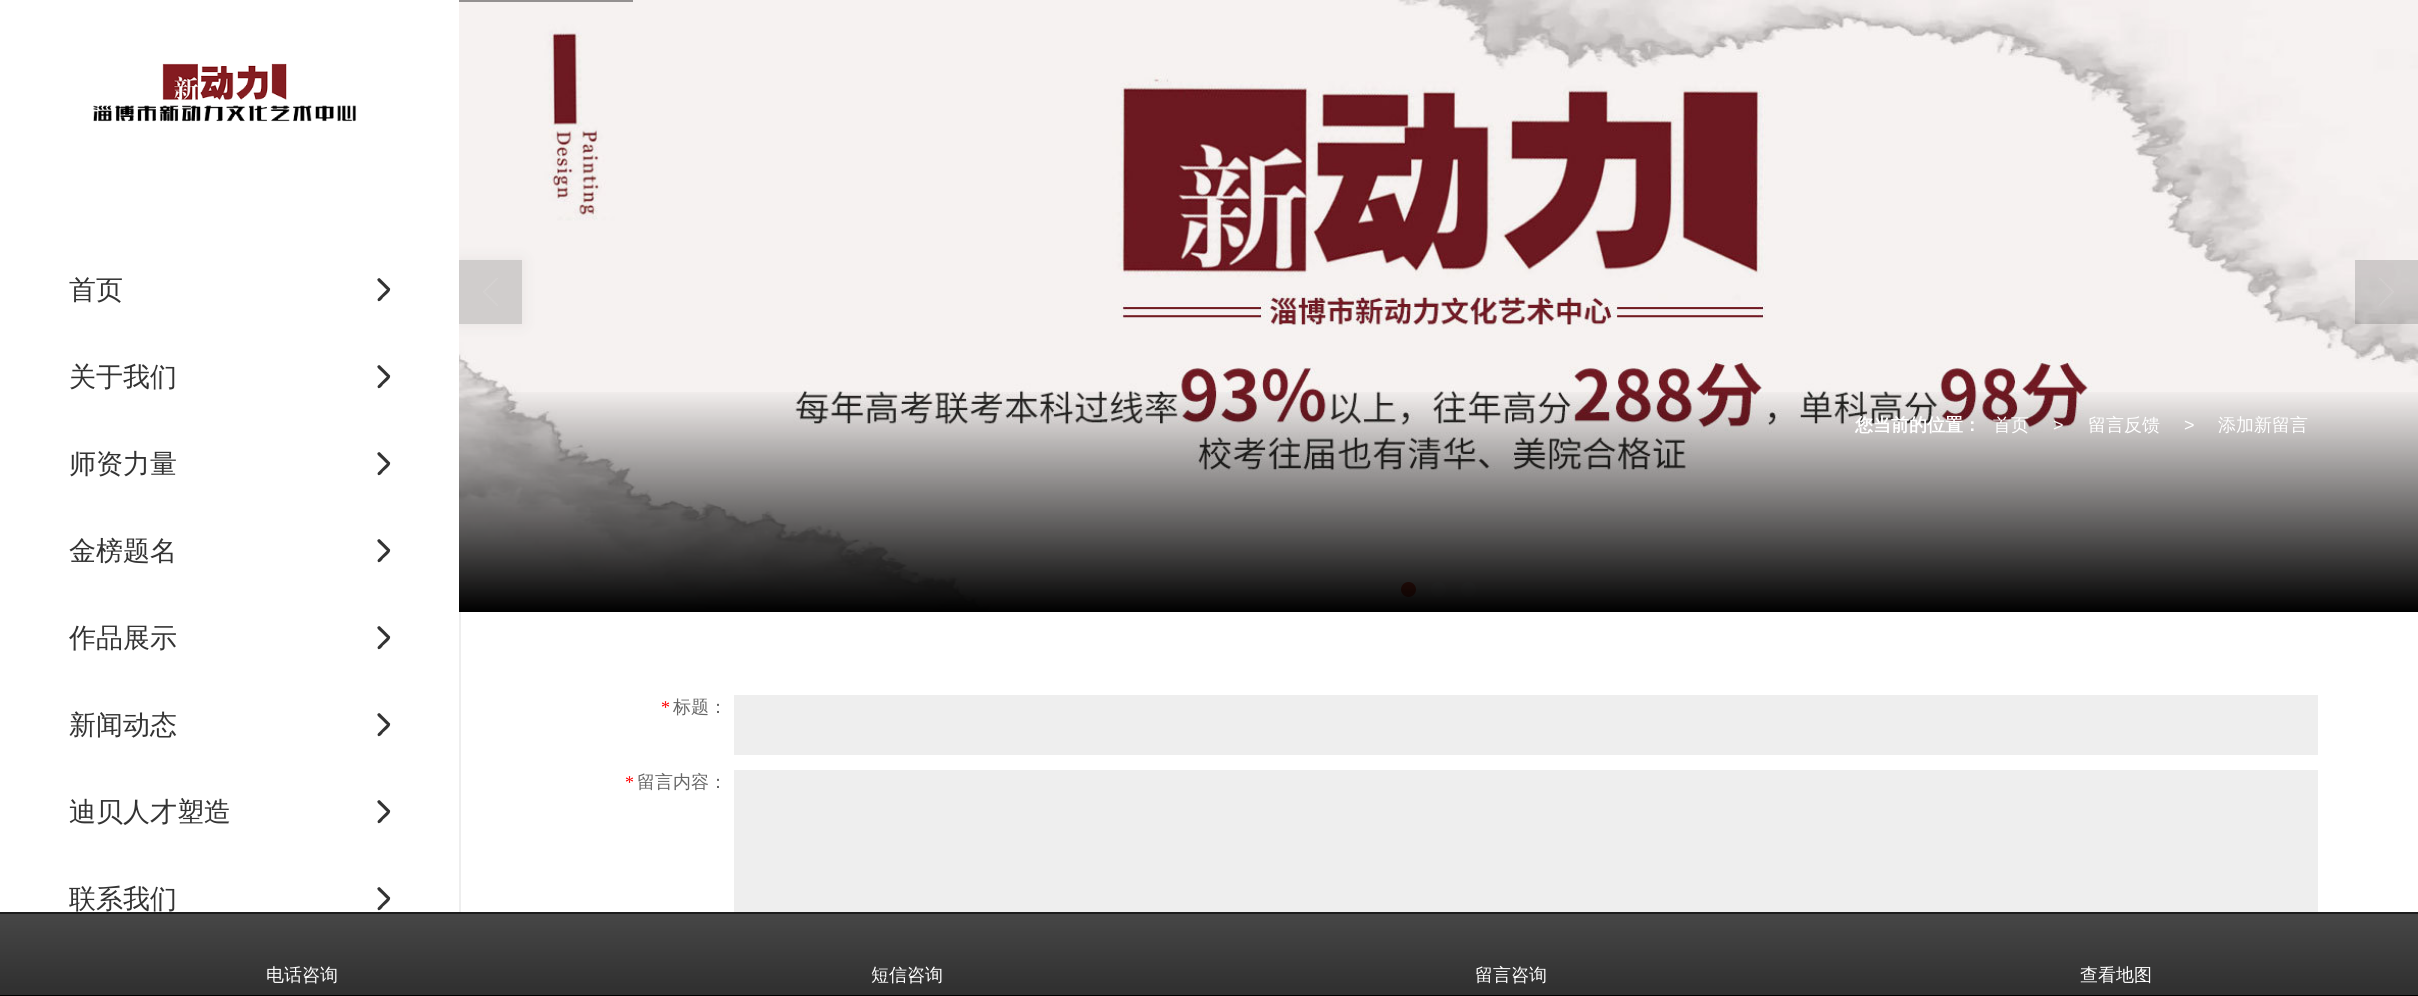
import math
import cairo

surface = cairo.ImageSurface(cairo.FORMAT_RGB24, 2418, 996)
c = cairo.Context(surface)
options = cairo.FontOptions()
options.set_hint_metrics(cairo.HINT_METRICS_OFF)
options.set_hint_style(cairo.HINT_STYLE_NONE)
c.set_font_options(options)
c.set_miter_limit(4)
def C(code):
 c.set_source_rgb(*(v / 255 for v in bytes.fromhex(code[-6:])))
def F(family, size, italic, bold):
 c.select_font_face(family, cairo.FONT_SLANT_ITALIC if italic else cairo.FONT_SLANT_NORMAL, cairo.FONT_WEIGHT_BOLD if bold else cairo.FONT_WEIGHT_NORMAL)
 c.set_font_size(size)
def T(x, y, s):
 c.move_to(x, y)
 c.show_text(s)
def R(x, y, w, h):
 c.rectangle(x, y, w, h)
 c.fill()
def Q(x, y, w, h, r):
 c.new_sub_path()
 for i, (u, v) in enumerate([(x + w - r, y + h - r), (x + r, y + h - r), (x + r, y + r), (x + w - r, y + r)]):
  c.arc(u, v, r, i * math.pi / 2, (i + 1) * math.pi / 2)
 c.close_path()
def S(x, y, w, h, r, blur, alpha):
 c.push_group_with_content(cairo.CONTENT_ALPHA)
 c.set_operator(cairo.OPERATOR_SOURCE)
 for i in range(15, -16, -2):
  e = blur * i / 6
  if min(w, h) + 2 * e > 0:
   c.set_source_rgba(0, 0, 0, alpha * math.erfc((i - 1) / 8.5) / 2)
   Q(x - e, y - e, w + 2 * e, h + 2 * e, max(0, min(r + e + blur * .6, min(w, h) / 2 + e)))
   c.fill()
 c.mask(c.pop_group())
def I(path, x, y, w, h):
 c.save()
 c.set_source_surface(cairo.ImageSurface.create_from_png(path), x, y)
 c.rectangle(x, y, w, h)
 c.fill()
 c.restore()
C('ffffff')
c.paint()
C('eeeeee')
R(459,612,2,300)
I('1.png',93,63,264,59)
F('WenQuanYi Zen Hei Medium',27,0,0)
C('333333')
T(69,299,'首页')
c.new_path()
c.move_to(380,278.5)
c.line_to(390,288.5)
c.curve_to(390.5,289,390,290,389,290.5)
c.curve_to(387.5,291.5,382.5,285,381,284)
c.curve_to(380,283,376.5,280.5,377.5,279)
c.line_to(379,278)
c.close_path()
c.fill()
c.new_path()
c.move_to(378,298.5)
c.line_to(387.5,289)
c.curve_to(388.5,288.5,389.5,288.5,390,289.5)
c.curve_to(390.5,291.5,384.5,296,383,297.5)
c.curve_to(382.5,298.5,380,302,378,301)
c.line_to(377.5,299.5)
c.close_path()
c.fill()
T(69,386,'关于我们')
c.new_path()
c.move_to(380,365.5)
c.line_to(390,375.5)
c.curve_to(390.5,376,390,377,389,377.5)
c.curve_to(387.5,378.5,382.5,372,381,371)
c.curve_to(380,370,376.5,367.5,377.5,366)
c.line_to(379,365)
c.close_path()
c.fill()
c.new_path()
c.move_to(378,385.5)
c.line_to(387.5,376)
c.curve_to(388.5,375.5,389.5,375.5,390,376.5)
c.curve_to(390.5,378.5,384.5,383,383,384.5)
c.curve_to(382.5,385.5,380,389,378,388)
c.line_to(377.5,386.5)
c.close_path()
c.fill()
T(69,473,'师资力量')
c.new_path()
c.move_to(380,452.5)
c.line_to(390,462.5)
c.curve_to(390.5,463,390,464,389,464.5)
c.curve_to(387.5,465.5,382.5,459,381,458)
c.curve_to(380,457,376.5,454.5,377.5,453)
c.line_to(379,452)
c.close_path()
c.fill()
c.new_path()
c.move_to(378,472.5)
c.line_to(387.5,463)
c.curve_to(388.5,462.5,389.5,462.5,390,463.5)
c.curve_to(390.5,465.5,384.5,470,383,471.5)
c.curve_to(382.5,472.5,380,476,378,475)
c.line_to(377.5,473.5)
c.close_path()
c.fill()
T(69,560,'金榜题名')
c.new_path()
c.move_to(380,539.5)
c.line_to(390,549.5)
c.curve_to(390.5,550,390,551,389,551.5)
c.curve_to(387.5,552.5,382.5,546,381,545)
c.curve_to(380,544,376.5,541.5,377.5,540)
c.line_to(379,539)
c.close_path()
c.fill()
c.new_path()
c.move_to(378,559.5)
c.line_to(387.5,550)
c.curve_to(388.5,549.5,389.5,549.5,390,550.5)
c.curve_to(390.5,552.5,384.5,557,383,558.5)
c.curve_to(382.5,559.5,380,563,378,562)
c.line_to(377.5,560.5)
c.close_path()
c.fill()
T(69,647,'作品展示')
c.new_path()
c.move_to(380,626.5)
c.line_to(390,636.5)
c.curve_to(390.5,637,390,638,389,638.5)
c.curve_to(387.5,639.5,382.5,633,381,632)
c.curve_to(380,631,376.5,628.5,377.5,627)
c.line_to(379,626)
c.close_path()
c.fill()
c.new_path()
c.move_to(378,646.5)
c.line_to(387.5,637)
c.curve_to(388.5,636.5,389.5,636.5,390,637.5)
c.curve_to(390.5,639.5,384.5,644,383,645.5)
c.curve_to(382.5,646.5,380,650,378,649)
c.line_to(377.5,647.5)
c.close_path()
c.fill()
T(69,734,'新闻动态')
c.new_path()
c.move_to(380,713.5)
c.line_to(390,723.5)
c.curve_to(390.5,724,390,725,389,725.5)
c.curve_to(387.5,726.5,382.5,720,381,719)
c.curve_to(380,718,376.5,715.5,377.5,714)
c.line_to(379,713)
c.close_path()
c.fill()
c.new_path()
c.move_to(378,733.5)
c.line_to(387.5,724)
c.curve_to(388.5,723.5,389.5,723.5,390,724.5)
c.curve_to(390.5,726.5,384.5,731,383,732.5)
c.curve_to(382.5,733.5,380,737,378,736)
c.line_to(377.5,734.5)
c.close_path()
c.fill()
T(69,821,'迪贝人才塑造')
c.new_path()
c.move_to(380,800.5)
c.line_to(390,810.5)
c.curve_to(390.5,811,390,812,389,812.5)
c.curve_to(387.5,813.5,382.5,807,381,806)
c.curve_to(380,805,376.5,802.5,377.5,801)
c.line_to(379,800)
c.close_path()
c.fill()
c.new_path()
c.move_to(378,820.5)
c.line_to(387.5,811)
c.curve_to(388.5,810.5,389.5,810.5,390,811.5)
c.curve_to(390.5,813.5,384.5,818,383,819.5)
c.curve_to(382.5,820.5,380,824,378,823)
c.line_to(377.5,821.5)
c.close_path()
c.fill()
T(69,908,'联系我们')
c.new_path()
c.move_to(380,887.5)
c.line_to(390,897.5)
c.curve_to(390.5,898,390,899,389,899.5)
c.curve_to(387.5,900.5,382.5,894,381,893)
c.curve_to(380,892,376.5,889.5,377.5,888)
c.line_to(379,887)
c.close_path()
c.fill()
c.new_path()
c.move_to(378,907.5)
c.line_to(387.5,898)
c.curve_to(388.5,897.5,389.5,897.5,390,898.5)
c.curve_to(390.5,900.5,384.5,905,383,906.5)
c.curve_to(382.5,907.5,380,911,378,910)
c.line_to(377.5,908.5)
c.close_path()
c.fill()
I('2.png',459,0,1959,611)
C('949191')
R(459,0,174,2)
c.save()
c.rectangle(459,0,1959,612)
c.clip()
C('c5c2c1')
S(459,260,63,64,0,7.5,.3)
c.restore()
C('d0cdcc')
R(459,260,63,64)
I('3.png',483,278,15,28)
c.set_source_rgba(0.224,0.224,0.224,0.2)
R(2355,260,63,64)
I('4.png',2379,278,15,28)
C('e1472f')
c.arc(1408.5,589.5,7.5,0,2 * math.pi)
c.fill()
C('ffffff')
c.arc(1438.5,589.5,7.5,0,2 * math.pi)
c.fill()
c.arc(1468.5,589.5,7.5,0,2 * math.pi)
c.fill()
gradient = cairo.LinearGradient(1439,612,1439,387)
gradient.add_color_stop_rgba(0,0,0,0,1)
gradient.add_color_stop_rgba(1,0,0,0,0)
c.set_source(gradient)
R(459,392,1959,220)
F('WenQuanYi Zen Hei',18,0,1)
C('ffffff')
T(1855,431,'您当前的位置：')
F('WenQuanYi Zen Hei Medium',18,0,0)
T(1993,431,'首页')
F('Liberation Sans',18,0,0)
T(2053,431,'>')
F('WenQuanYi Zen Hei Medium',18,0,0)
T(2088,431,'留言反馈')
F('Liberation Sans',18,0,0)
T(2184,431,'>')
F('WenQuanYi Zen Hei Medium',18,0,0)
T(2218,431,'添加新留言')
F('Liberation Serif',18,0,0)
C('ff0000')
T(661,713,'*')
F('WenQuanYi Zen Hei Medium',18,0,0)
C('666666')
T(673,713,'标题：')
C('eeeeee')
R(734,695,1584,60)
F('Liberation Serif',18,0,0)
C('ff0000')
T(625,788,'*')
F('WenQuanYi Zen Hei Medium',18,0,0)
C('666666')
T(637,788,'留言内容：')
C('eeeeee')
R(734,770,1584,142)
gradient = cairo.LinearGradient(1209,913,1209,995)
gradient.add_color_stop_rgba(0,0.278,0.278,0.278,1)
gradient.add_color_stop_rgba(1,0.184,0.184,0.184,1)
c.set_source(gradient)
R(0,914,2418,81)
C('1d1d1d')
R(0,912,2418,2)
C('000000')
R(0,995,2418,1)
C('ffffff')
T(266,981,'电话咨询')
T(871,981,'短信咨询')
T(1475,981,'留言咨询')
T(2080,981,'查看地图')
surface.write_to_png('o.png')
